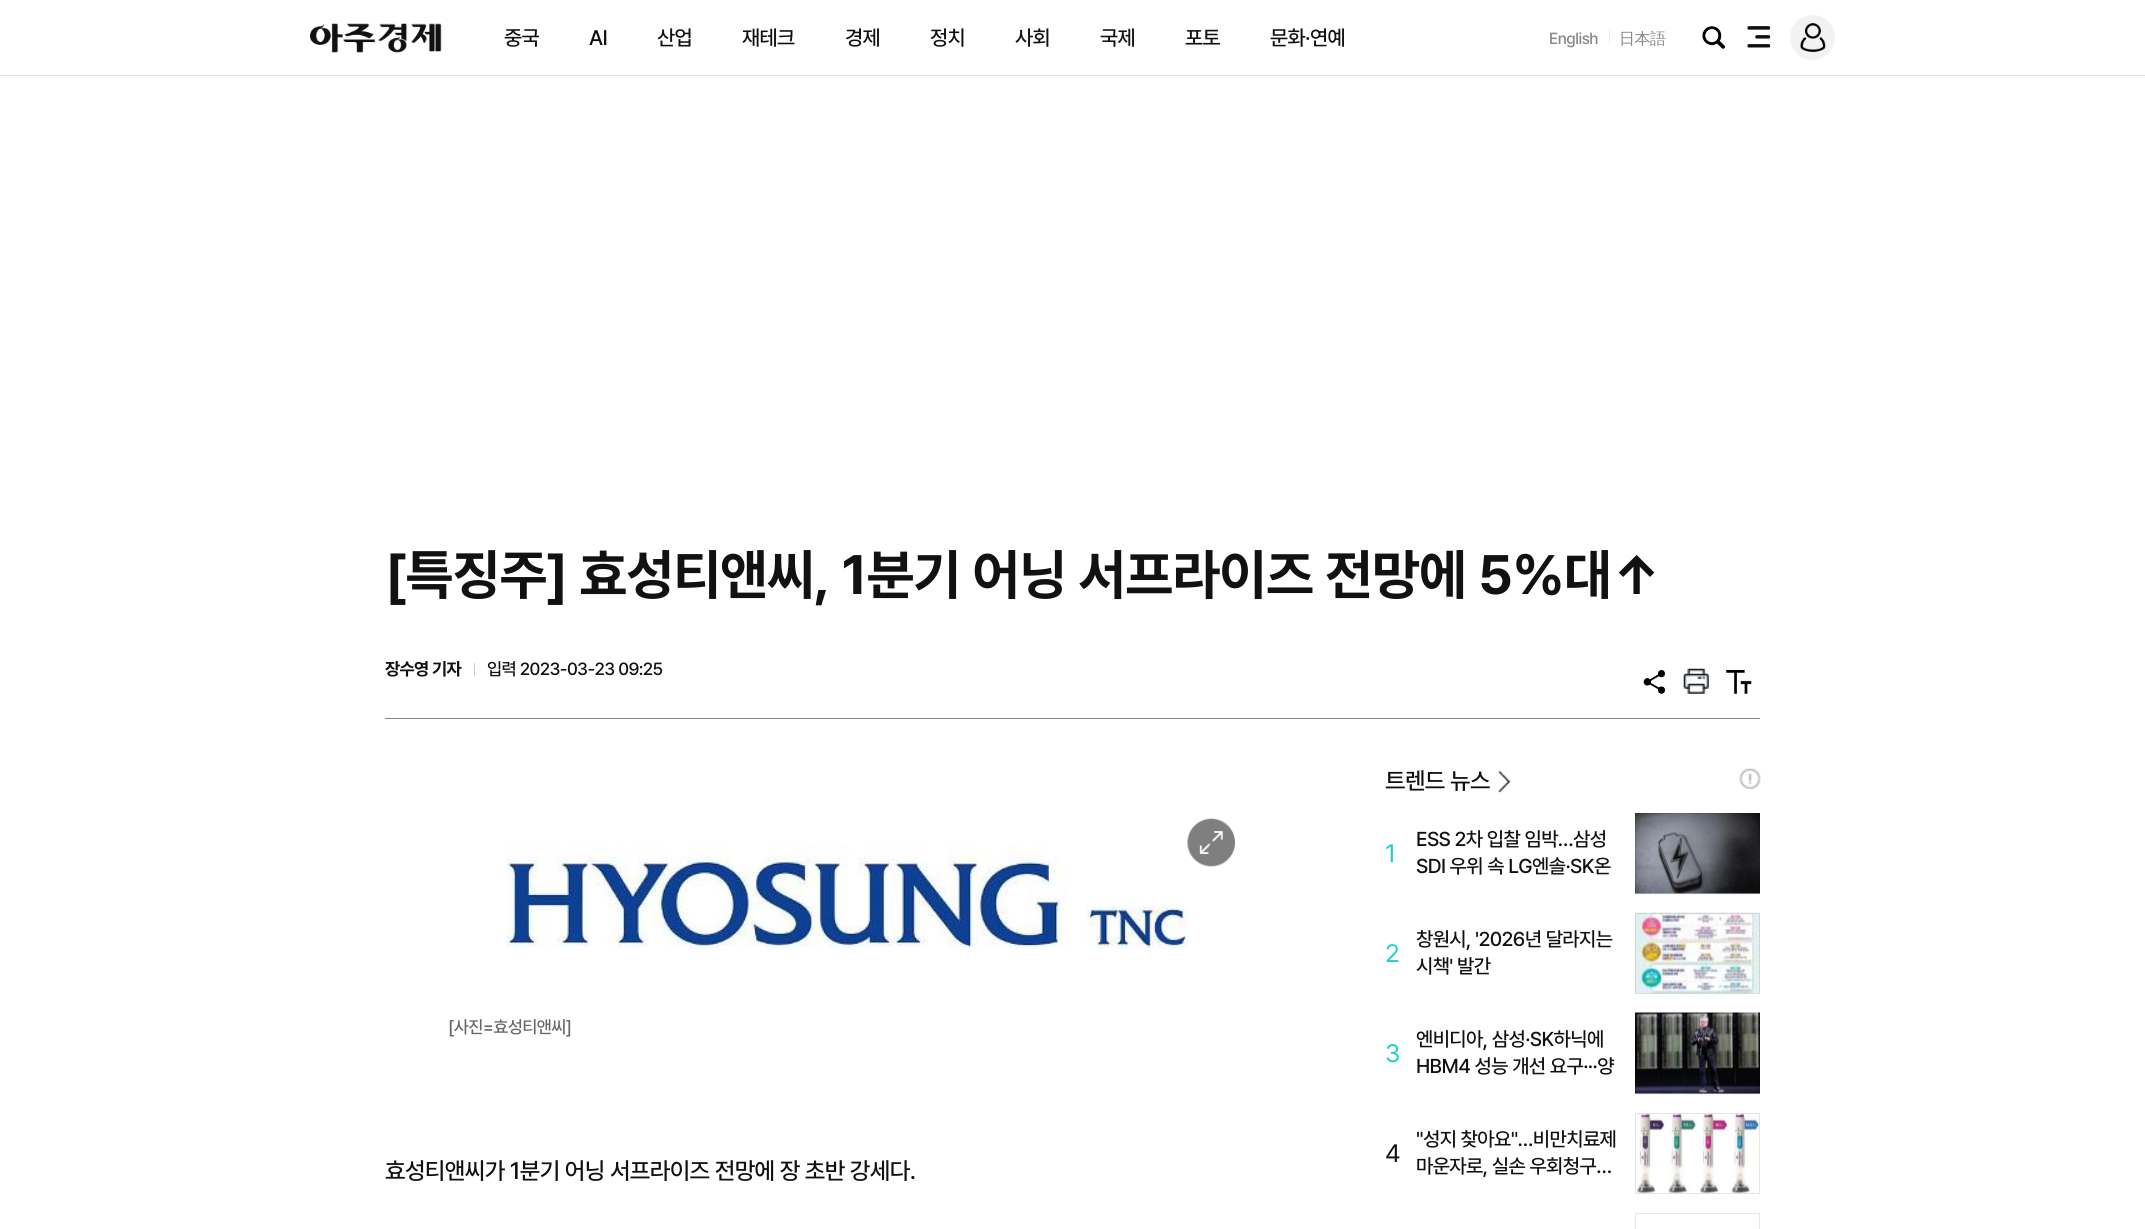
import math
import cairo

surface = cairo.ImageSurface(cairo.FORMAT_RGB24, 2145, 1229)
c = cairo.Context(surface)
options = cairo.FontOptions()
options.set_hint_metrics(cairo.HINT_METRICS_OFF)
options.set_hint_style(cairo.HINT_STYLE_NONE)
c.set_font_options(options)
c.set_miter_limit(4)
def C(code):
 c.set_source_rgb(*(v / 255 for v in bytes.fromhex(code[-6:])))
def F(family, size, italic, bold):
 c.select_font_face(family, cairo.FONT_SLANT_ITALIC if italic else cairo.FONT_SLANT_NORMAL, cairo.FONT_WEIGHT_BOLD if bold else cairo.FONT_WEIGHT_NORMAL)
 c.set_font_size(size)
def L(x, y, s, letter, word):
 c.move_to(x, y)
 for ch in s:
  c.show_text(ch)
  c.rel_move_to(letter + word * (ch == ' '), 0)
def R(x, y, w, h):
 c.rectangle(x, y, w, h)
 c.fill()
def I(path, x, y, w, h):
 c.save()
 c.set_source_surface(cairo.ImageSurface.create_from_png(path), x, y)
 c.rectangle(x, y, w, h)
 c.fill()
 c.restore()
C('ffffff')
c.paint()
C('dddddd')
R(0,75,2145,1)
I('1.png',310,23,132,30)
F('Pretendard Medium',21,0,0)
C('111111')
L(504,45,'중국',-.6,0)
L(589,45,'AI',-.6,0)
L(657,45,'산업',-.6,0)
L(742,45,'재테크',-.6,0)
L(845,45,'경제',-.6,0)
L(930,45,'정치',-.6,0)
L(1015,45,'사회',-.6,0)
L(1100,45,'국제',-.6,0)
L(1185,45,'포토',-.6,0)
L(1270,45,'문화·연예',-.6,0)
F('Pretendard Medium',16,0,0)
C('888888')
L(1549,44,'English',-.5,0)
C('eaeff5')
R(1609,30,1,14)
F('WenQuanYi Zen Hei Medium',16,0,0)
C('888888')
L(1619,44,'日本語',-.5,0)
I('2.png',1702,26,23,23)
I('3.png',1747,26,24,22)
I('4.png',1790,15,45,45)
C('878787')
R(385,718,1375,1)
F('Pretendard',55,0,1)
C('111111')
L(385,594,'[특징주] 효성티앤씨, 1분기 어닝 서프라이즈 전망에 5%대↑',-.6,0)
F('Pretendard',17.5,0,1)
L(385,675,'장수영 기자',-.6,0)
C('cccccc')
R(474,663,1,13)
F('Pretendard Medium',17.5,0,0)
C('111111')
L(487,675,'입력 2023-03-23 09:25',-.6,0)
I('5.png',1643,670,22,24)
I('6.png',1683,668,26,26)
I('7.png',1726,670,26,24)
I('8.png',506,846,683,103)
I('9.png',1187,818,48,49)
C('666666')
L(448,1033,'[사진=효성티앤씨]',-.6,0)
F('Pretendard Medium',23.75,0,0)
C('111111')
L(385,1179,'효성티앤씨가 1분기 어닝 서프라이즈 전망에 장 초반 강세다.',-.6,0)
L(1385,789,'트렌드 뉴스',-.6,0)
I('10.png',1498,770,13,23)
I('11.png',1739,768,22,21)
F('Pretendard',25,0,0)
C('20d0cc')
L(1385,862,'1',-.6,0)
F('Pretendard Medium',20,0,0)
C('111111')
L(1416,846,'ESS 2차 입찰 임박…삼성',-.6,0)
L(1416,873,'SDI 우위 속 LG엔솔·SK온',-.6,0)
I('12.png',1635,813,125,82)
c.rectangle(1635.5,813.5,124,80)
c.set_source_rgba(0,0,0,0.1)
c.set_line_width(1)
c.stroke()
F('Pretendard',25,0,0)
C('20d0cc')
L(1385,962,'2',-.6,0)
F('Pretendard Medium',20,0,0)
C('111111')
L(1416,946,'창원시, \'2026년 달라지는',-.6,0)
L(1416,973,'시책\' 발간',-.6,0)
I('13.png',1635,912,125,82)
c.rectangle(1635.5,913.5,124,80)
c.set_source_rgba(0,0,0,0.1)
c.stroke()
F('Pretendard',25,0,0)
C('20d0cc')
L(1385,1062,'3',-.6,0)
F('Pretendard Medium',20,0,0)
C('111111')
L(1416,1046,'엔비디아, 삼성·SK하닉에',-.6,0)
L(1416,1073,'HBM4 성능 개선 요구···양',-.6,0)
I('14.png',1635,1012,125,83)
c.rectangle(1635.5,1013.5,124,80)
c.set_source_rgba(0,0,0,0.1)
c.stroke()
F('Pretendard',25,0,0)
C('111111')
L(1385,1162,'4',-.6,0)
F('Pretendard Medium',20,0,0)
L(1416,1146,'"성지 찾아요"…비만치료제',-.6,0)
L(1416,1173,'마운자로, 실손 우회청구…',-.6,0)
I('15.png',1636,1112,124,82)
c.rectangle(1635.5,1113.5,124,80)
c.set_source_rgba(0,0,0,0.1)
c.stroke()
c.rectangle(1635.5,1213.5,124,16)
C('e6e6e6')
c.stroke()
surface.write_to_png('o.png')
